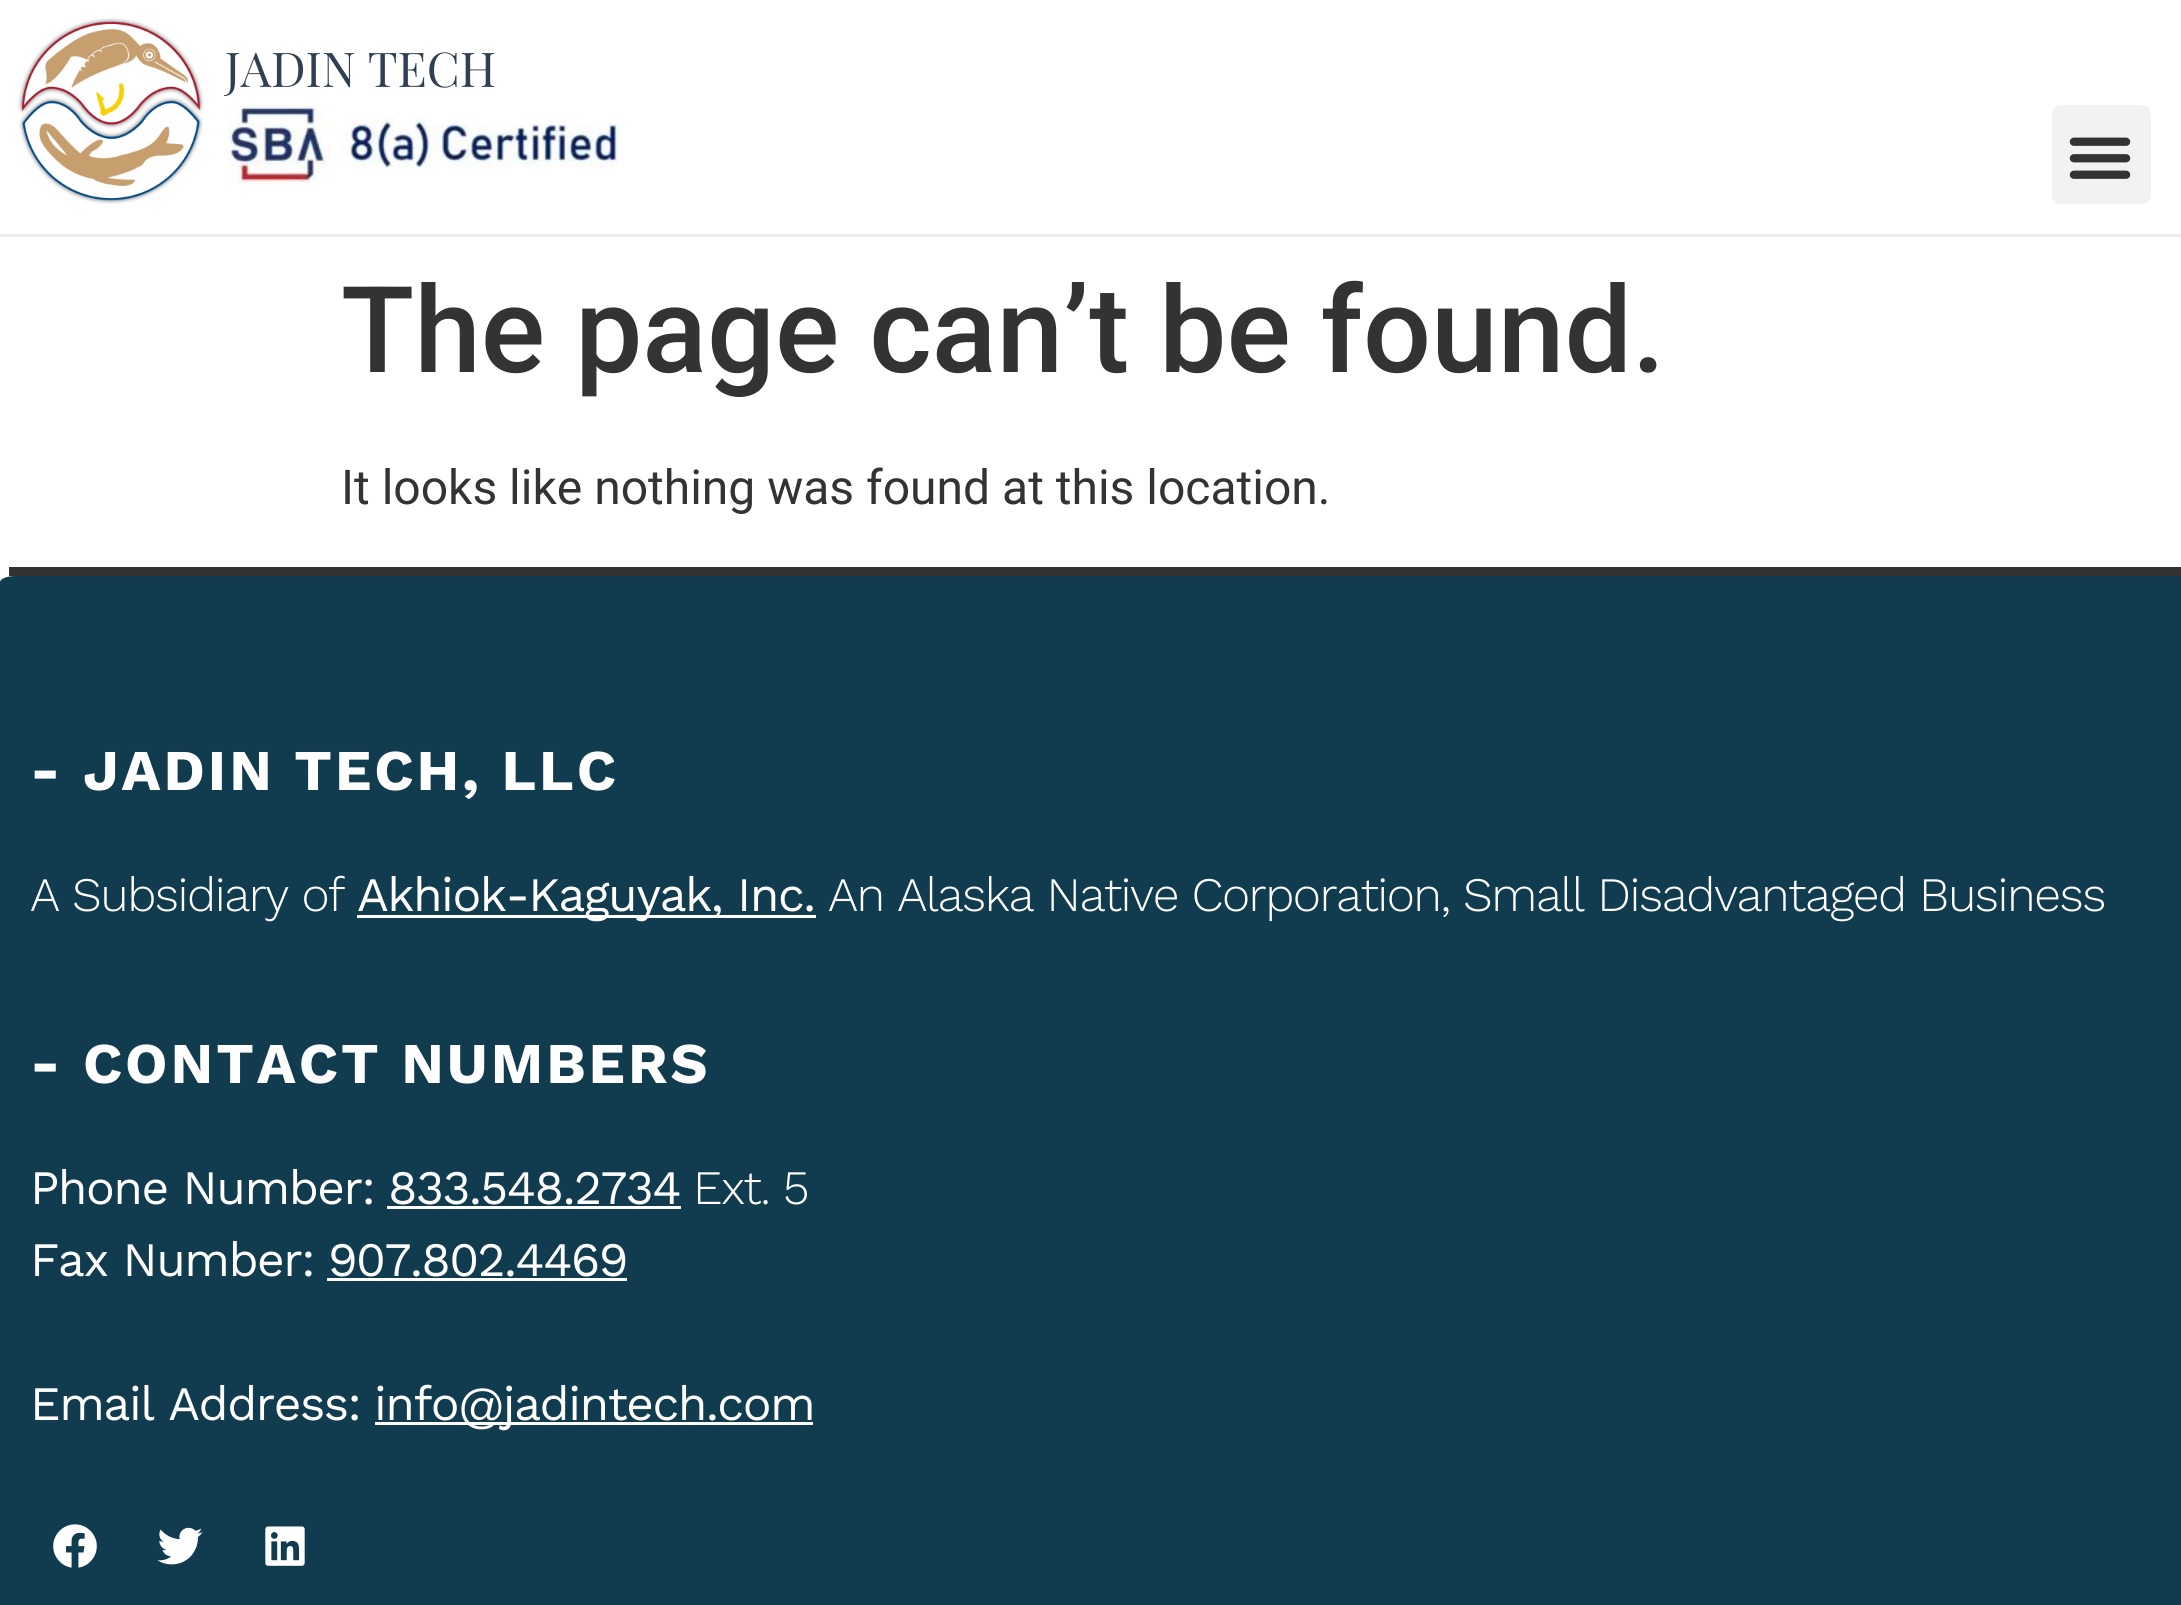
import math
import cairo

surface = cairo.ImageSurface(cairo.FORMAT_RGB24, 2181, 1605)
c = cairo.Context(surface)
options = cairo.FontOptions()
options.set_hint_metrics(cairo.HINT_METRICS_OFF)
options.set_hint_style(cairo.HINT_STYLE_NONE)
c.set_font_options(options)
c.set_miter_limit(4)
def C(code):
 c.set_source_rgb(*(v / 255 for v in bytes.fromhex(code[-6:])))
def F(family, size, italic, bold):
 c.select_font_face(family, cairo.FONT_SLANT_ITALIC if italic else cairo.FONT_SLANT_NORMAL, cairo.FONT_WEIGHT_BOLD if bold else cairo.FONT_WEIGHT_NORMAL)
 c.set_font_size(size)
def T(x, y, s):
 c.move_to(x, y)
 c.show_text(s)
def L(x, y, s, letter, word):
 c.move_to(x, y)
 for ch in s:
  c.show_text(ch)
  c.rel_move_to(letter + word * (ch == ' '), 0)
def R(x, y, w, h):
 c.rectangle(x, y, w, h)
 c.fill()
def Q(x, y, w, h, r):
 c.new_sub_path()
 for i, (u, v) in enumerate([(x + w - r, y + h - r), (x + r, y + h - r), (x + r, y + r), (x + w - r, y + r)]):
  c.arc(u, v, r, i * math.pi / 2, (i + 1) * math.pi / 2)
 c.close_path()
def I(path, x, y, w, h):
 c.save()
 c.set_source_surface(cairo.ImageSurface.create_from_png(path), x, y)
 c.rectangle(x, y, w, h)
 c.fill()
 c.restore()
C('ffffff')
c.paint()
C('eeeeee')
R(0,234,2181,3)
I('1.png',18,18,186,186)
F('Playfair Display',48,0,0)
C('313f54')
T(225,87,'JADIN TECH')
I('2.png',228,105,390,78)
C('f2f2f2')
Q(2052,105,99,99,9)
c.fill()
I('3.png',2069,137,62,42)
F('Roboto Medium',120,0,0)
C('333333')
T(341,372,'The page can’t be found.')
F('Roboto',48,0,0)
T(341,504,'It looks like nothing was found at this location.')
C('113b4e')
c.new_path()
c.move_to(15,576)
c.line_to(2181,576)
c.line_to(2181,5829)
c.line_to(0,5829)
c.line_to(0,582)
c.curve_to(0,579,7,576,15,576)
c.close_path()
c.fill()
C('333333')
R(9,567,2172,9)
F('Work Sans',57.6,0,1)
C('ffffff')
L(30,790,'- JADIN TECH, LLC',3,0)
F('Work Sans Light',48,0,0)
L(30,911,'A Subsidiary of',-1.5,0)
R(357,915,459,3)
F('Work Sans',48,0,0)
L(357,911,'Akhiok-Kaguyak, Inc.',-1.5,0)
F('Work Sans Light',48,0,0)
L(828,911,'An Alaska Native Corporation, Small Disadvantaged Business',-1.5,0)
F('Work Sans',57.6,0,1)
L(30,1083,'- CONTACT NUMBERS',3,0)
F('Work Sans',48,0,0)
L(30,1204,'Phone Number:',-1.5,0)
L(388,1204,'833.548.2734',-1.5,0)
R(387,1206,294,3)
F('Work Sans Light',48,0,0)
L(693,1204,'Ext. 5',-1.5,0)
F('Work Sans',48,0,0)
L(30,1276,'Fax Number:',-1.5,0)
L(328,1276,'907.802.4469',-1.5,0)
R(327,1278,300,3)
L(30,1420,'Email Address:',-1.5,0)
R(375,1422,438,3)
L(374,1420,'info@jadintech.com',-1.5,0)
I('4.png',53,1524,44,44)
I('5.png',157,1527,46,38)
I('6.png',265,1526,40,40)
surface.write_to_png('o.png')
